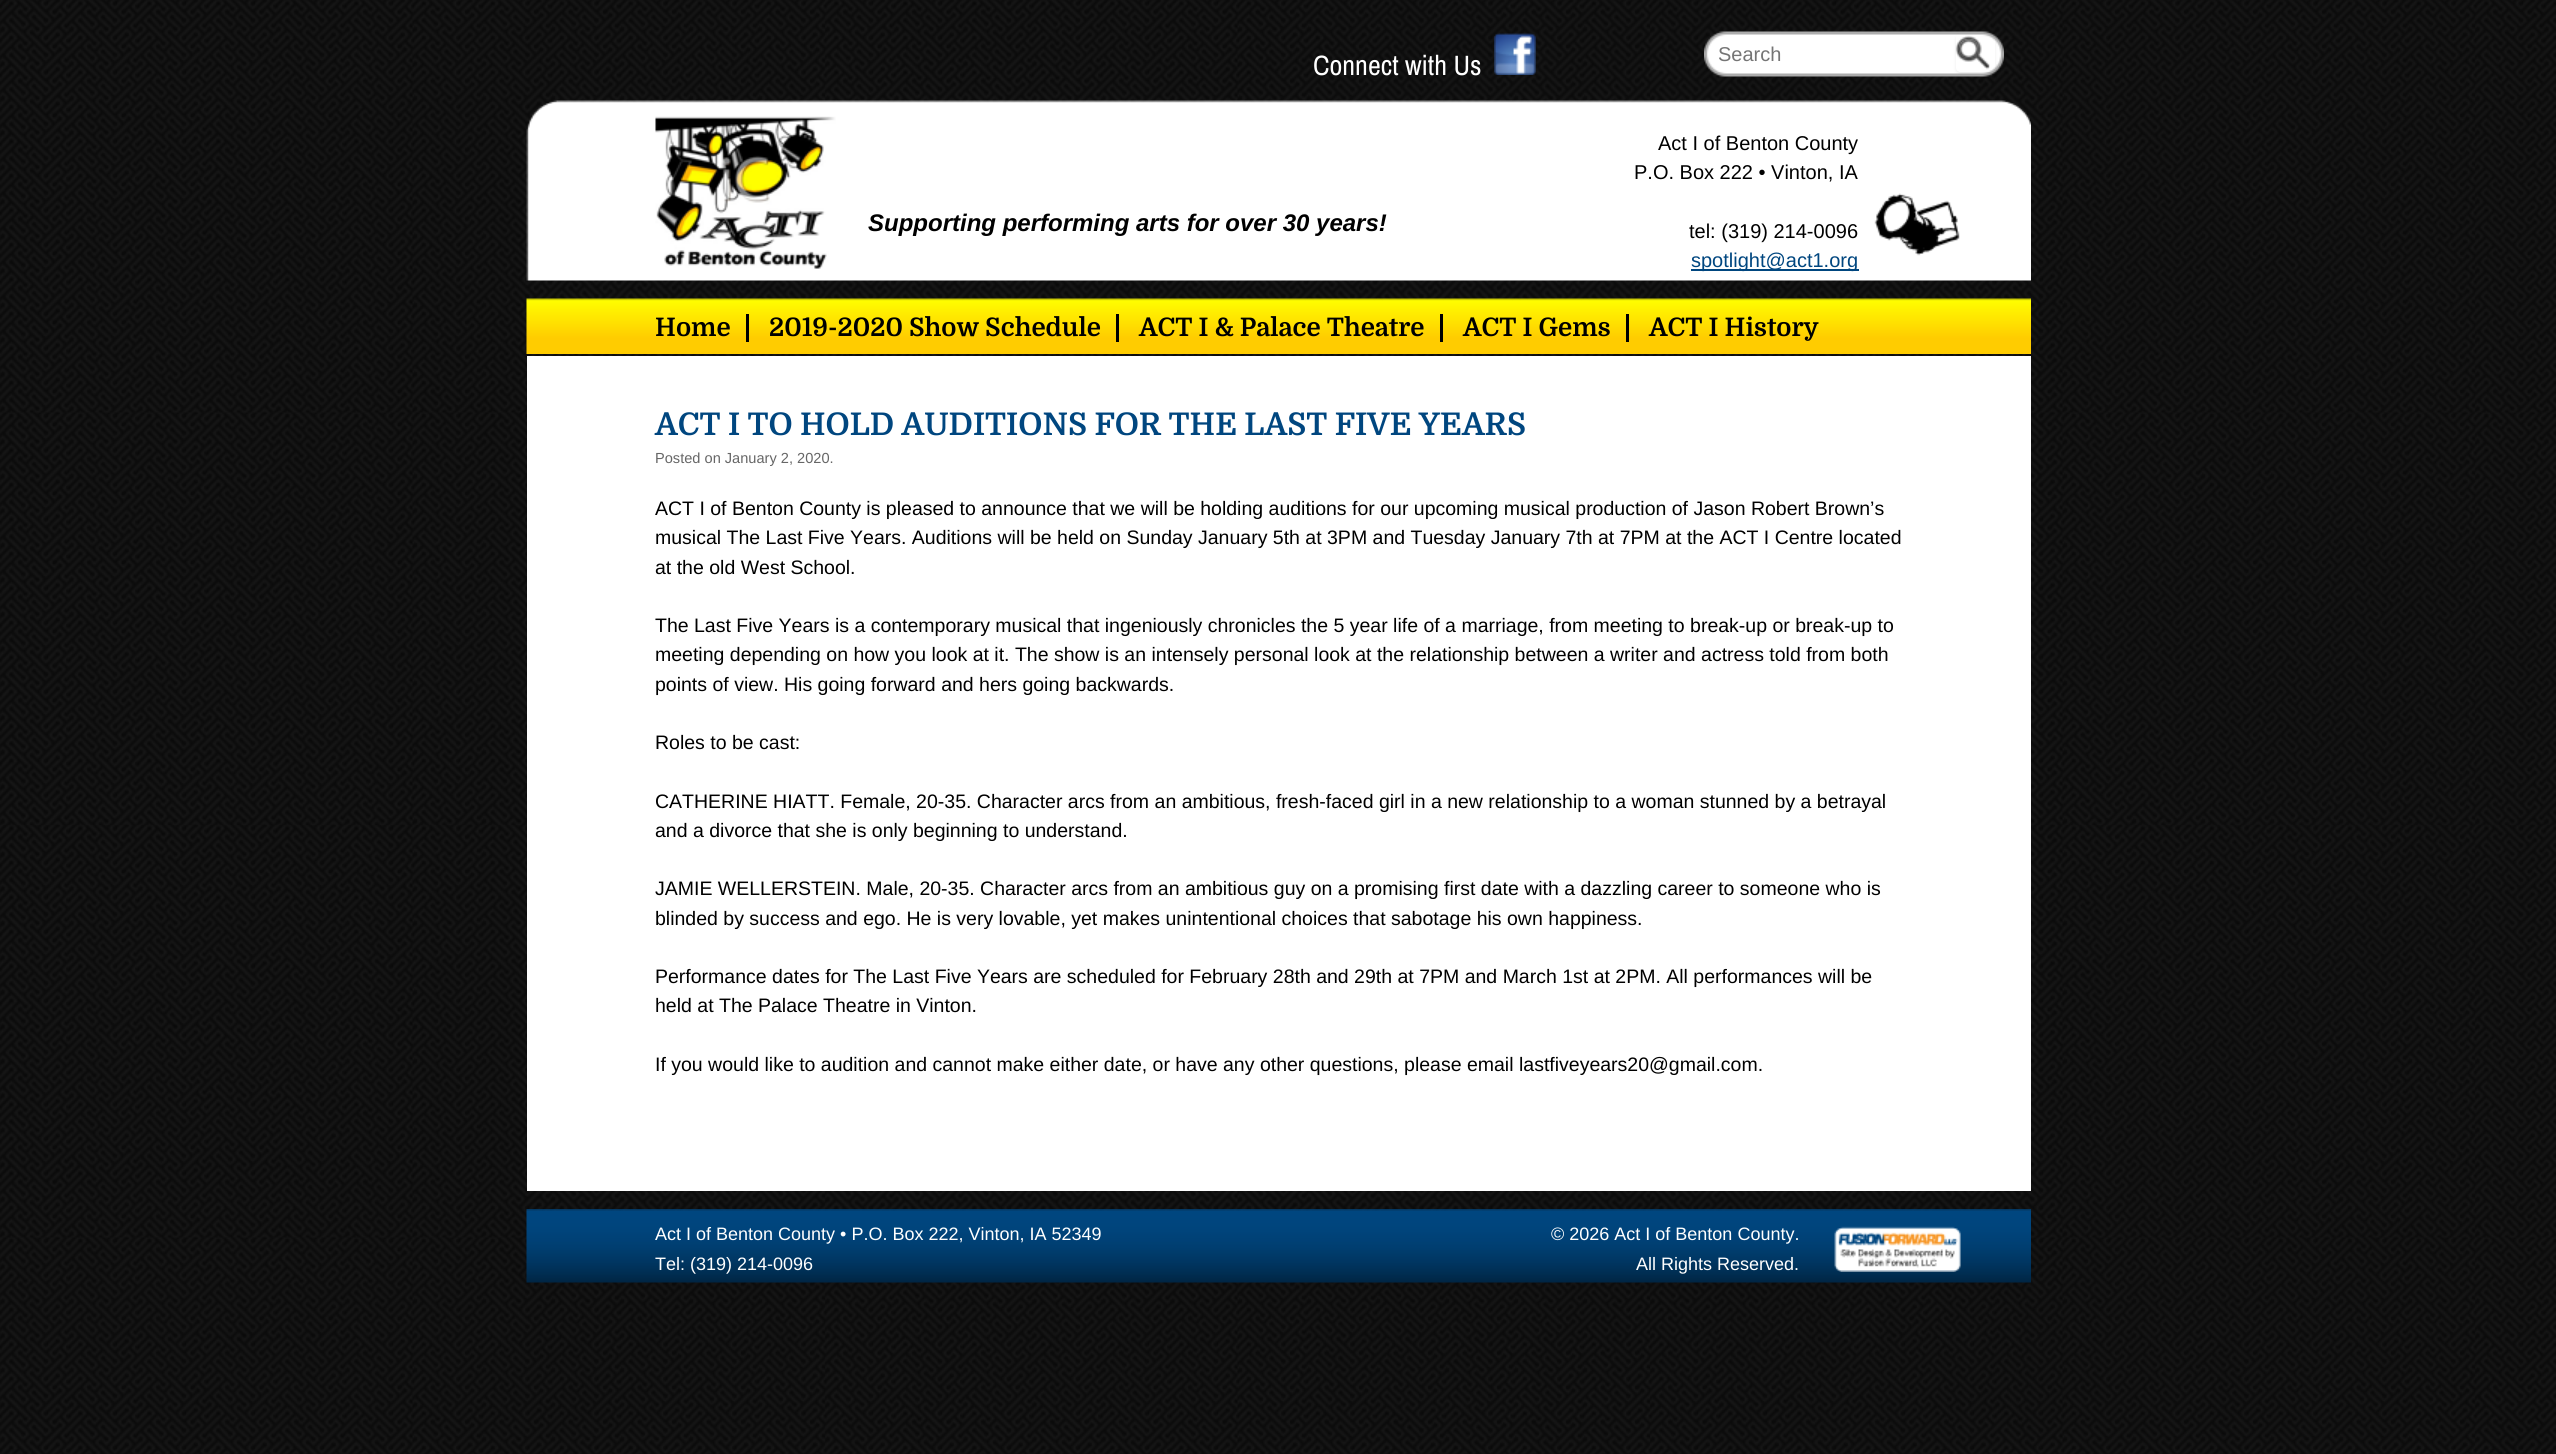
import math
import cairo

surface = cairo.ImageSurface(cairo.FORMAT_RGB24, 2556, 1454)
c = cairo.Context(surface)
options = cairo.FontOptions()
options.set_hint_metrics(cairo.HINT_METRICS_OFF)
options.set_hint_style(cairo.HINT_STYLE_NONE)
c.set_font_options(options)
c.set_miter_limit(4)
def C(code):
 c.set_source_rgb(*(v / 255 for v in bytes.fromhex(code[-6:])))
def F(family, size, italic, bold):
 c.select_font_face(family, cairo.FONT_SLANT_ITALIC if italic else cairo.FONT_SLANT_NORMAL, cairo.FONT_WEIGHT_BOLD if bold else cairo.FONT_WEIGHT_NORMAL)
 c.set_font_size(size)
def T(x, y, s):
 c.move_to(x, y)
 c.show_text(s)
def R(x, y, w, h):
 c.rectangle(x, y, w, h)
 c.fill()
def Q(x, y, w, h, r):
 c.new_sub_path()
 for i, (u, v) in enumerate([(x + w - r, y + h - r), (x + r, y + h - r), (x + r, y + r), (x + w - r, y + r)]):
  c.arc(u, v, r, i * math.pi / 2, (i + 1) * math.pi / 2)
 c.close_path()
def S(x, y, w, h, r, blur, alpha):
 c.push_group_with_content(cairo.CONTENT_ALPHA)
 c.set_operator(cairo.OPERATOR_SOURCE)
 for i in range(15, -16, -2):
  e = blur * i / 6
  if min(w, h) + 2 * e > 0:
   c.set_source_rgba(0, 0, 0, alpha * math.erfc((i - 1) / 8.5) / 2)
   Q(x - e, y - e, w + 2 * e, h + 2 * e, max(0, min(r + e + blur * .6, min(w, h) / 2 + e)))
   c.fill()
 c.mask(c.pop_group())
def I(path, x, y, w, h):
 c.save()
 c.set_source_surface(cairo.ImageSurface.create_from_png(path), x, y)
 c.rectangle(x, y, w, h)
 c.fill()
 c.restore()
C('ffffff')
c.paint()
I('1.png',0,0,2556,1454)
F('Archivo Narrow',28,0,0)
C('ffffff')
T(1313,75,'Connect with Us')
I('2.png',1494,33,42,42)
I('3.png',1704,31,300,46)
F('Liberation Sans',20,0,0)
C('757575')
T(1718,61,'Search')
c.save()
c.set_fill_rule(cairo.FILL_RULE_EVEN_ODD)
c.new_path()
c.move_to(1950,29)
c.line_to(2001,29)
c.line_to(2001,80)
c.line_to(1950,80)
c.close_path()
c.move_to(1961,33)
c.line_to(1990,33)
c.curve_to(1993,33,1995,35,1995,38)
c.line_to(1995,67)
c.curve_to(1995,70,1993,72,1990,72)
c.line_to(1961,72)
c.curve_to(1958,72,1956,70,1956,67)
c.line_to(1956,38)
c.curve_to(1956,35,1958,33,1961,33)
c.close_path()
c.clip()
C('404040')
S(1956,35,39,39,5,1.5,.1)
c.restore()
I('4.png',526,100,1505,181)
I('5.png',655,116,181,153)
F('Liberation Sans',24,1,1)
C('000000')
T(868,231,'Supporting performing arts for over 30 years!')
F('Liberation Sans',20,0,0)
T(1658,150,'Act I of Benton County')
T(1634,179,'P.O. Box 222 • Vinton, IA')
T(1689,238,'tel: (319) 214-0096')
C('00467f')
R(1691,269,168,2)
T(1691,267,'spotlight@act1.org')
I('6.png',1874,193,86,63)
I('7.png',526,298,1505,56)
F('Domine',25.5,0,1)
C('000000')
T(655,336,'Home')
R(746,314,3,28)
T(769,336,'2019-2020 Show Schedule')
R(1116,314,3,28)
T(1139,336,'ACT I & Palace Theatre')
R(1440,314,3,28)
T(1463,336,'ACT I Gems')
R(1626,314,3,28)
T(1649,336,'ACT I History')
C('ffffff')
R(527,356,1504,835)
F('Domine',31.2,0,1)
C('00467f')
T(655,435,'ACT I TO HOLD AUDITIONS FOR THE LAST FIVE YEARS')
F('Liberation Sans',14.6,0,0)
C('666666')
T(655,463,'Posted on January 2, 2020.')
F('Liberation Sans',19.5,0,0)
C('000000')
T(655,515,'ACT I of Benton County is pleased to announce that we will be holding auditions for our upcoming musical production of Jason Robert Brown’s')
T(655,544,'musical The Last Five Years. Auditions will be held on Sunday January 5th at 3PM and Tuesday January 7th at 7PM at the ACT I Centre located')
T(655,574,'at the old West School.')
T(655,632,'The Last Five Years is a contemporary musical that ingeniously chronicles the 5 year life of a marriage, from meeting to break-up or break-up to')
T(655,661,'meeting depending on how you look at it. The show is an intensely personal look at the relationship between a writer and actress told from both')
T(655,691,'points of view. His going forward and hers going backwards.')
T(655,749,'Roles to be cast:')
T(655,808,'CATHERINE HIATT. Female, 20-35. Character arcs from an ambitious, fresh-faced girl in a new relationship to a woman stunned by a betrayal')
T(655,837,'and a divorce that she is only beginning to understand.')
T(655,895,'JAMIE WELLERSTEIN. Male, 20-35. Character arcs from an ambitious guy on a promising first date with a dazzling career to someone who is')
T(655,925,'blinded by success and ego. He is very lovable, yet makes unintentional choices that sabotage his own happiness.')
T(655,983,'Performance dates for The Last Five Years are scheduled for February 28th and 29th at 7PM and March 1st at 2PM. All performances will be')
T(655,1012,'held at The Palace Theatre in Vinton.')
T(655,1071,'If you would like to audition and cannot make either date, or have any other questions, please email lastfiveyears20@gmail.com.')
I('8.png',526,1209,1505,74)
F('Liberation Sans',18,0,0)
C('ffffff')
T(655,1240,'Act I of Benton County • P.O. Box 222, Vinton, IA 52349')
T(655,1270,'Tel: (319) 214-0096')
T(1551,1240,'© 2026 Act I of Benton County.')
T(1636,1270,'All Rights Reserved.')
I('9.png',1834,1226,127,46)
surface.write_to_png('o.png')
